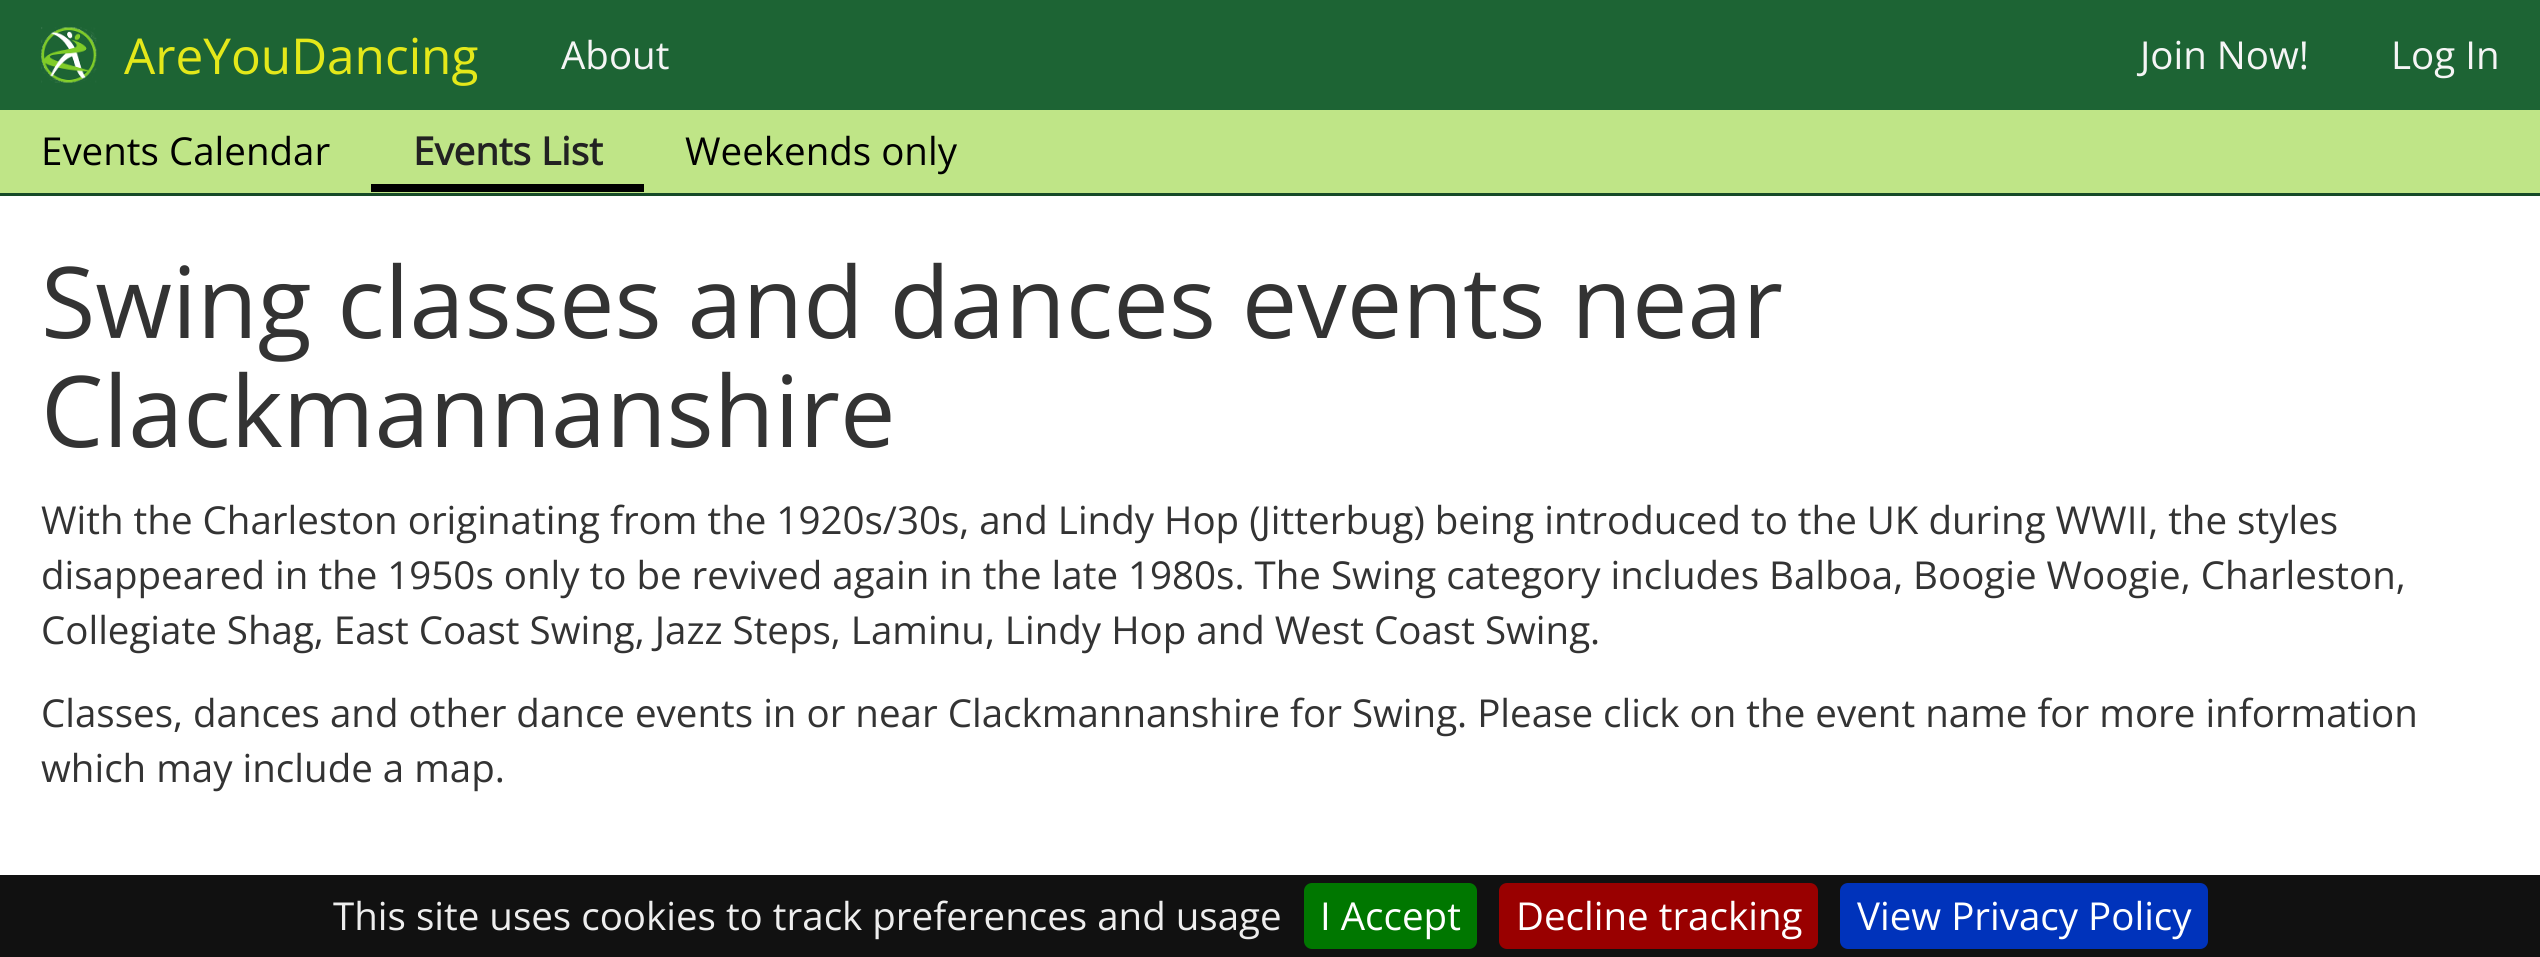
import math
import cairo

surface = cairo.ImageSurface(cairo.FORMAT_RGB24, 2540, 957)
c = cairo.Context(surface)
options = cairo.FontOptions()
options.set_hint_metrics(cairo.HINT_METRICS_OFF)
options.set_hint_style(cairo.HINT_STYLE_NONE)
c.set_font_options(options)
c.set_miter_limit(4)
def C(code):
 c.set_source_rgb(*(v / 255 for v in bytes.fromhex(code[-6:])))
def F(family, size, italic, bold):
 c.select_font_face(family, cairo.FONT_SLANT_ITALIC if italic else cairo.FONT_SLANT_NORMAL, cairo.FONT_WEIGHT_BOLD if bold else cairo.FONT_WEIGHT_NORMAL)
 c.set_font_size(size)
def T(x, y, s):
 c.move_to(x, y)
 c.show_text(s)
def R(x, y, w, h):
 c.rectangle(x, y, w, h)
 c.fill()
def Q(x, y, w, h, r):
 c.new_sub_path()
 for i, (u, v) in enumerate([(x + w - r, y + h - r), (x + r, y + h - r), (x + r, y + r), (x + w - r, y + r)]):
  c.arc(u, v, r, i * math.pi / 2, (i + 1) * math.pi / 2)
 c.close_path()
def I(path, x, y, w, h):
 c.save()
 c.set_source_surface(cairo.ImageSurface.create_from_png(path), x, y)
 c.rectangle(x, y, w, h)
 c.fill()
 c.restore()
C('ffffff')
c.paint()
C('1d6434')
R(0,0,2540,110)
C('164a27')
R(0,193,2540,3)
I('1.png',41,27,56,56)
F('Open Sans',49.5,0,0)
C('e4e81a')
T(124,74,'AreYouDancing')
F('Open Sans',38.5,0,0)
C('f5f5f5')
T(561,69,'About')
T(2140,69,'Join Now!')
T(2391,69,'Log In')
C('bfe587')
R(0,110,2540,83)
C('000000')
T(41,165,'Events Calendar')
R(371,184,273,8)
F('Open Sans',38.5,0,1)
C('222222')
T(413,165,'Events List')
F('Open Sans',38.5,0,0)
C('000000')
T(685,165,'Weekends only')
F('Open Sans',99,0,0)
C('333333')
T(41,338,'Swing classes and dances events near')
T(41,447,'Clackmannanshire')
F('Open Sans',38.5,0,0)
T(41,534,'With the Charleston originating from the 1920s/30s, and Lindy Hop (Jitterbug) being introduced to the UK during WWII, the styles')
T(41,589,'disappeared in the 1950s only to be revived again in the late 1980s. The Swing category includes Balboa, Boogie Woogie, Charleston,')
T(41,644,'Collegiate Shag, East Coast Swing, Jazz Steps, Laminu, Lindy Hop and West Coast Swing.')
T(41,727,'Classes, dances and other dance events in or near Clackmannanshire for Swing. Please click on the event name for more information')
T(41,782,'which may include a map.')
C('111111')
R(0,875,2540,82)
C('eeeeee')
T(333,930,'This site uses cookies to track preferences and usage')
C('007700')
Q(1304,883,173,66,8)
c.fill()
C('ffffff')
T(1320,930,'I Accept')
C('990000')
Q(1499,883,319,66,8)
c.fill()
C('ffffff')
T(1516,930,'Decline tracking')
C('0033bb')
Q(1840,883,368,66,8)
c.fill()
C('ffffff')
T(1857,930,'View Privacy Policy')
surface.write_to_png('o.png')
